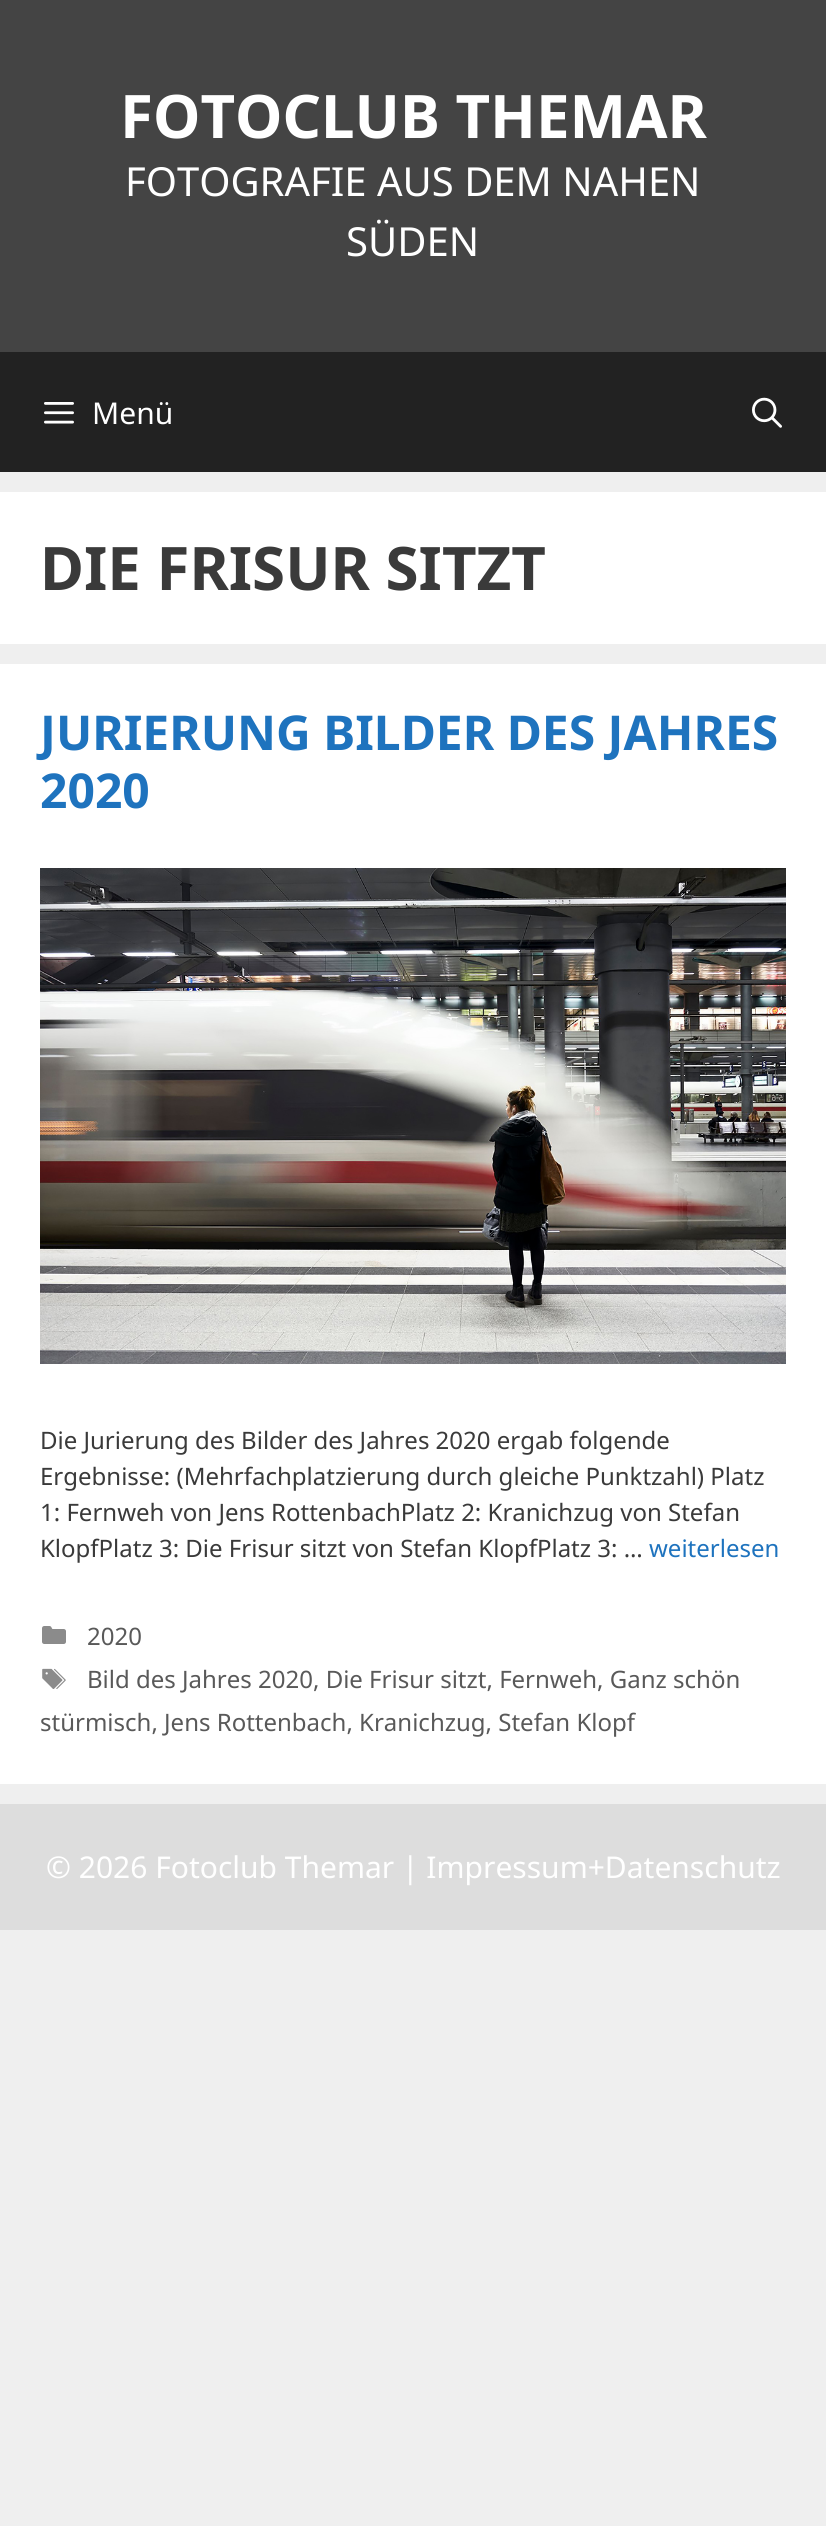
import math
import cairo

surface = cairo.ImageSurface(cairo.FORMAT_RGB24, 826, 2526)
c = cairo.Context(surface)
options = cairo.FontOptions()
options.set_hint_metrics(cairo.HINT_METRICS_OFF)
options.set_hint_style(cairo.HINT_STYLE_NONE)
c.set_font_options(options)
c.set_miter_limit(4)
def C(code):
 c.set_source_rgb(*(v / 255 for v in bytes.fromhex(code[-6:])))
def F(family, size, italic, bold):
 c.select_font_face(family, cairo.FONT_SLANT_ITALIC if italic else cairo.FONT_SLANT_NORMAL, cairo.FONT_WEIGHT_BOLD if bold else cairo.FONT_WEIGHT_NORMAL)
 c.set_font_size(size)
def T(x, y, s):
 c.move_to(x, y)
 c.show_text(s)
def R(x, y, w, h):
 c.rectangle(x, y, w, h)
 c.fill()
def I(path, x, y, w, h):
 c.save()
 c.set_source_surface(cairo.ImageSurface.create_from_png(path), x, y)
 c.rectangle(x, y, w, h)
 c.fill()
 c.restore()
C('efefef')
c.paint()
C('444444')
R(0,0,826,352)
F('Noto Sans',60,0,1)
C('ffffff')
T(120,138,'FOTOCLUB THEMAR')
F('Noto Sans',40,0,0)
T(125,196,'FOTOGRAFIE AUS DEM NAHEN')
T(346,256,'SÜDEN')
C('222222')
R(0,352,826,120)
I('1.png',44,402,30,22)
F('Noto Sans',30,0,0)
C('ffffff')
T(92,424,'Menü')
I('2.png',752,397,30,31)
R(0,492,826,152)
F('Noto Sans',60,0,1)
C('3a3a3a')
T(40,590,'DIE FRISUR SITZT')
C('ffffff')
R(0,664,826,1120)
F('Noto Sans',48,0,1)
C('1e73be')
T(40,750,'JURIERUNG BILDER DES JAHRES')
T(40,808,'2020')
I('3.png',40,868,746,496)
F('Noto Sans',24,0,0)
C('3a3a3a')
T(40,1449,'Die Jurierung des Bilder des Jahres 2020 ergab folgende')
T(40,1485,'Ergebnisse: (Mehrfachplatzierung durch gleiche Punktzahl) Platz')
T(40,1521,'1: Fernweh von Jens RottenbachPlatz 2: Kranichzug von Stefan')
T(40,1557,'KlopfPlatz 3: Die Frisur sitzt von Stefan KlopfPlatz 3: …')
C('1e73be')
T(649,1557,'weiterlesen')
I('4.png',42,1626,24,18)
C('595959')
T(87,1645,'2020')
I('5.png',42,1668,24,21)
T(87,1688,'Bild des Jahres 2020, Die Frisur sitzt, Fernweh, Ganz schön')
T(40,1731,'stürmisch, Jens Rottenbach, Kranichzug, Stefan Klopf')
C('dddddd')
R(0,1804,826,126)
F('Noto Sans',30,0,0)
C('ffffff')
T(46,1878,'© 2026 Fotoclub Themar | Impressum+Datenschutz')
surface.write_to_png('o.png')
